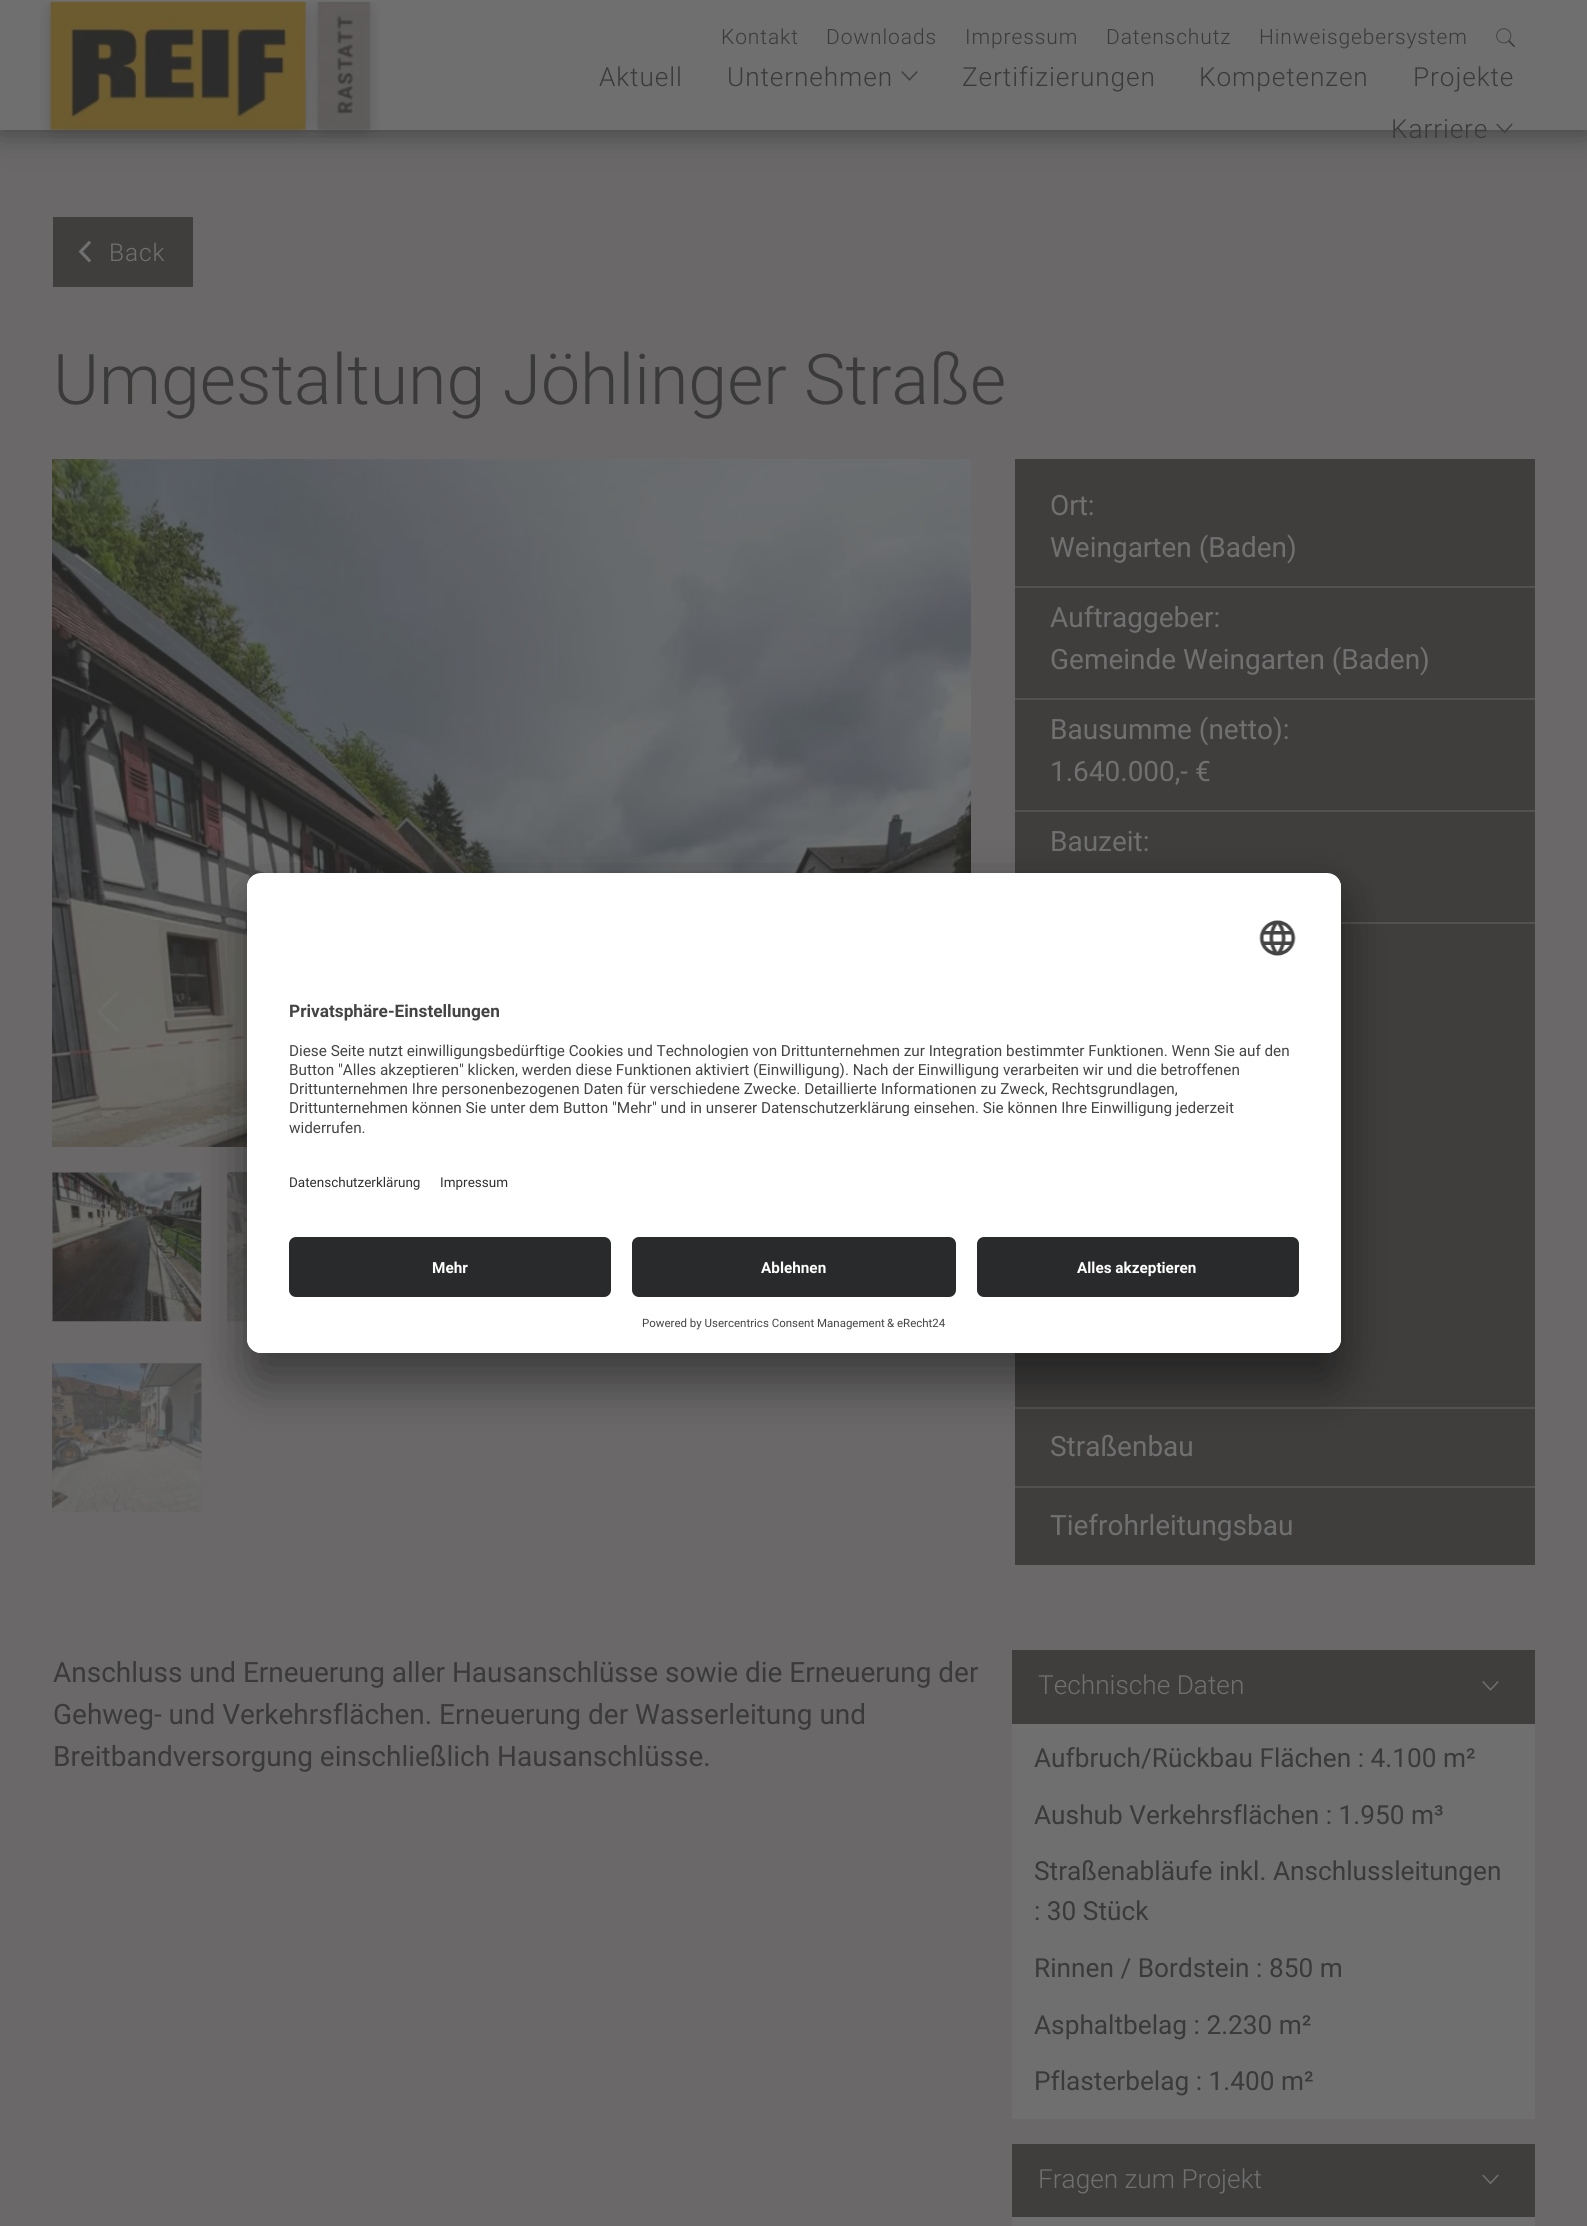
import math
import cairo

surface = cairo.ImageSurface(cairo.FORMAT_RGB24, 1587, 2226)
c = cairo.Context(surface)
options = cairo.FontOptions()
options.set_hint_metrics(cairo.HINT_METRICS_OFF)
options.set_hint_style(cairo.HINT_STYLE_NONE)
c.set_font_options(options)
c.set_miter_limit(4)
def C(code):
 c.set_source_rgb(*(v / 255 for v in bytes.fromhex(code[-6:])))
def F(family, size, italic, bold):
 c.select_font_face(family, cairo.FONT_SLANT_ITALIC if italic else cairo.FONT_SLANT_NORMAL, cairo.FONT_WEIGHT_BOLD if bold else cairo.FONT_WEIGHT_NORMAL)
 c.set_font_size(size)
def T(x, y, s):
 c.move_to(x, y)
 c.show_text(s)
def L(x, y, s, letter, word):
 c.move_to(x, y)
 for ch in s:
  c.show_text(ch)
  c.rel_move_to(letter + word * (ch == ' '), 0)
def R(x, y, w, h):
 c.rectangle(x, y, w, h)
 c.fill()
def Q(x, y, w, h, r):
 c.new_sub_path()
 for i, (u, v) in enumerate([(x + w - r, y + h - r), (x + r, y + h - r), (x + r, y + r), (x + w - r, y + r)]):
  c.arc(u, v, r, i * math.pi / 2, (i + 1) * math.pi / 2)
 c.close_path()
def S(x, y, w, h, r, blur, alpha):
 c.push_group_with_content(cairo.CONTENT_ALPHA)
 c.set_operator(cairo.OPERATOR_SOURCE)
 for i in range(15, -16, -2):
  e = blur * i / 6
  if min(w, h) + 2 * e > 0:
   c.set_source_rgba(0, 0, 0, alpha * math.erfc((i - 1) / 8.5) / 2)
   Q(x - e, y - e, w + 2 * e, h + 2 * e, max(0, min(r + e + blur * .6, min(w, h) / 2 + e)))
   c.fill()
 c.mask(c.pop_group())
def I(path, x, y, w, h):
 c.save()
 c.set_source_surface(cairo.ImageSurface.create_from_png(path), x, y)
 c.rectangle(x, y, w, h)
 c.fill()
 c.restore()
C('6a6868')
c.paint()
c.save()
c.set_fill_rule(cairo.FILL_RULE_EVEN_ODD)
c.new_path()
c.move_to(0,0)
c.line_to(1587,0)
c.line_to(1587,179)
c.line_to(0,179)
c.close_path()
c.move_to(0,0)
c.line_to(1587,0)
c.line_to(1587,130)
c.line_to(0,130)
c.close_path()
c.clip()
C('3d3d3d')
S(0,0,1587,130,0,16,1)
c.restore()
C('706f6f')
R(0,0,1587,77)
F('Roboto Light',21,0,0)
C('3b3a3a')
L(721,44,'Kontakt',.9,0)
L(826,44,'Downloads',.9,0)
L(965,44,'Impressum',.9,0)
L(1106,44,'Datenschutz',.9,0)
L(1259,44,'Hinweisgebersystem',.9,0)
I('1.png',1496,28,20,20)
c.set_source_rgba(0.439,0.439,0.439,0.9)
R(0,77,1587,53)
I('2.png',40,1,340,143)
F('Roboto Light',26.25,0,0)
C('3b3a3a')
L(599,86,'Aktuell',.9,0)
L(727,86,'Unternehmen',.9,0)
I('3.png',901,71,17,10)
L(962,86,'Zertifizierungen',.9,0)
L(1199,86,'Kompetenzen',.9,0)
L(1413,86,'Projekte',.9,0)
L(1391,138,'Karriere',.9,0)
I('4.png',1496,123,17,11)
C('3f3e3d')
R(53,217,140,70)
I('5.png',78,240,13,23)
F('Roboto Light',24.5,0,0)
C('707070')
L(109,261,'Back',.9,0)
F('Roboto Light',70,0,0)
C('3b3a3a')
T(53,404,'Umgestaltung Jöhlinger Straße')
I('6.png',52,459,919,688)
c.new_path()
c.move_to(118.5,992)
c.line_to(98.5,1011.5)
c.line_to(118.5,1031)
c.set_source_rgba(0.439,0.439,0.439,0.7)
c.set_line_width(2.4)
c.stroke()
I('7.png',52,1172,150,150)
I('8.png',227,1172,20,150)
I('9.png',52,1363,150,149)
C('3f3e3d')
R(1015,459,520,1106)
F('Roboto',28,0,0)
C('707070')
T(1050,515,'Ort:')
T(1050,557,'Weingarten (Baden)')
C('525252')
R(1015,586,520,2)
C('707070')
T(1050,627,'Auftraggeber:')
T(1050,669,'Gemeinde Weingarten (Baden)')
C('525252')
R(1015,698,520,2)
C('707070')
T(1050,739,'Bausumme (netto):')
T(1050,781,'1.640.000,- €')
C('525252')
R(1015,810,520,2)
C('707070')
T(1050,851,'Bauzeit:')
C('525252')
R(1341,922,194,2)
R(1015,1407,520,2)
C('707070')
T(1050,1456,'Straßenbau')
C('525252')
R(1015,1486,520,2)
C('707070')
T(1050,1535,'Tiefrohrleitungsbau')
C('3b3a3a')
T(53,1682,'Anschluss und Erneuerung aller Hausanschlüsse sowie die Erneuerung der')
T(53,1724,'Gehweg- und Verkehrsflächen. Erneuerung der Wasserleitung und')
T(53,1766,'Breitbandversorgung einschließlich Hausanschlüsse.')
C('3f3e3d')
R(1012,1650,523,74)
F('Roboto Light',26.25,0,0)
C('707070')
T(1038,1694,'Technische Daten')
I('10.png',1482,1681,17,10)
C('6f6f6f')
R(1012,1724,523,395)
F('Roboto',26.25,0,0)
C('3b3a3a')
T(1034,1767,'Aufbruch/Rückbau Flächen : 4.100 m²')
T(1034,1824,'Aushub Verkehrsflächen : 1.950 m³')
T(1034,1880,'Straßenabläufe inkl. Anschlussleitungen')
T(1034,1920,': 30 Stück')
T(1034,1977,'Rinnen / Bordstein : 850 m')
T(1034,2034,'Asphaltbelag : 2.230 m²')
T(1034,2090,'Pflasterbelag : 1.400 m²')
C('3f3e3d')
R(1012,2144,523,73)
F('Roboto Light',26.25,0,0)
C('707070')
T(1038,2188,'Fragen zum Projekt')
I('11.png',1482,2174,17,11)
C('6f6f6f')
R(1012,2217,523,9)
C('000000')
S(247,908,1094,480,14,24.5,.3)
S(247,882,1094,480,14,23,.22)
C('ffffff')
Q(247,873,1094,480,14)
c.fill()
c.save()
Q(247,873,1094,480,14)
c.clip()
c.new_path()
c.move_to(261,873)
c.line_to(1327,873)
c.curve_to(1334.5,873,1341,879.5,1341,887)
c.line_to(1341,1223)
c.line_to(247,1223)
c.line_to(247,887)
c.curve_to(247,879.5,253.5,873,261,873)
c.close_path()
c.clip()
R(247,875,1094,348)
c.restore()
I('12.png',1259,920,37,36)
F('Roboto',17.25,0,1)
C('444444')
T(289,1017,'Privatsphäre-Einstellungen')
F('Roboto',15.3,0,0)
T(289,1056,'Diese Seite nutzt einwilligungsbedürftige Cookies und Technologien von Drittunternehmen zur Integration bestimmter Funktionen. Wenn Sie auf den')
T(289,1075,'Button "Alles akzeptieren" klicken, werden diese Funktionen aktiviert (Einwilligung). Nach der Einwilligung verarbeiten wir und die betroffenen')
T(289,1094,'Drittunternehmen Ihre personenbezogenen Daten für verschiedene Zwecke. Detaillierte Informationen zu Zweck, Rechtsgrundlagen,')
T(289,1113,'Drittunternehmen können Sie unter dem Button "Mehr" und in unserer Datenschutzerklärung einsehen. Sie können Ihre Einwilligung jederzeit')
T(289,1133,'widerrufen.')
F('Roboto',13.5,0,0)
C('303030')
T(289,1187,'Datenschutzerklärung')
T(440,1187,'Impressum')
C('ffffff')
c.new_path()
c.move_to(247,1223)
c.line_to(1341,1223)
c.line_to(1341,1339)
c.curve_to(1341,1346.5,1334.5,1353,1327,1353)
c.line_to(261,1353)
c.curve_to(253.5,1353,247,1346.5,247,1339)
c.close_path()
c.fill()
C('292a2b')
Q(289,1237,322,60,7)
c.fill()
F('Roboto',15.3,0,1)
C('ffffff')
T(432,1273,'Mehr')
C('292a2b')
Q(632,1237,324,60,7)
c.fill()
C('ffffff')
T(761,1273,'Ablehnen')
C('292a2b')
Q(977,1237,322,60,7)
c.fill()
C('ffffff')
T(1077,1273,'Alles akzeptieren')
F('Roboto',11.5,0,0)
C('444444')
T(642,1327,'Powered by Usercentrics Consent Management')
T(887,1327,'& eRecht24')
surface.write_to_png('o.png')
